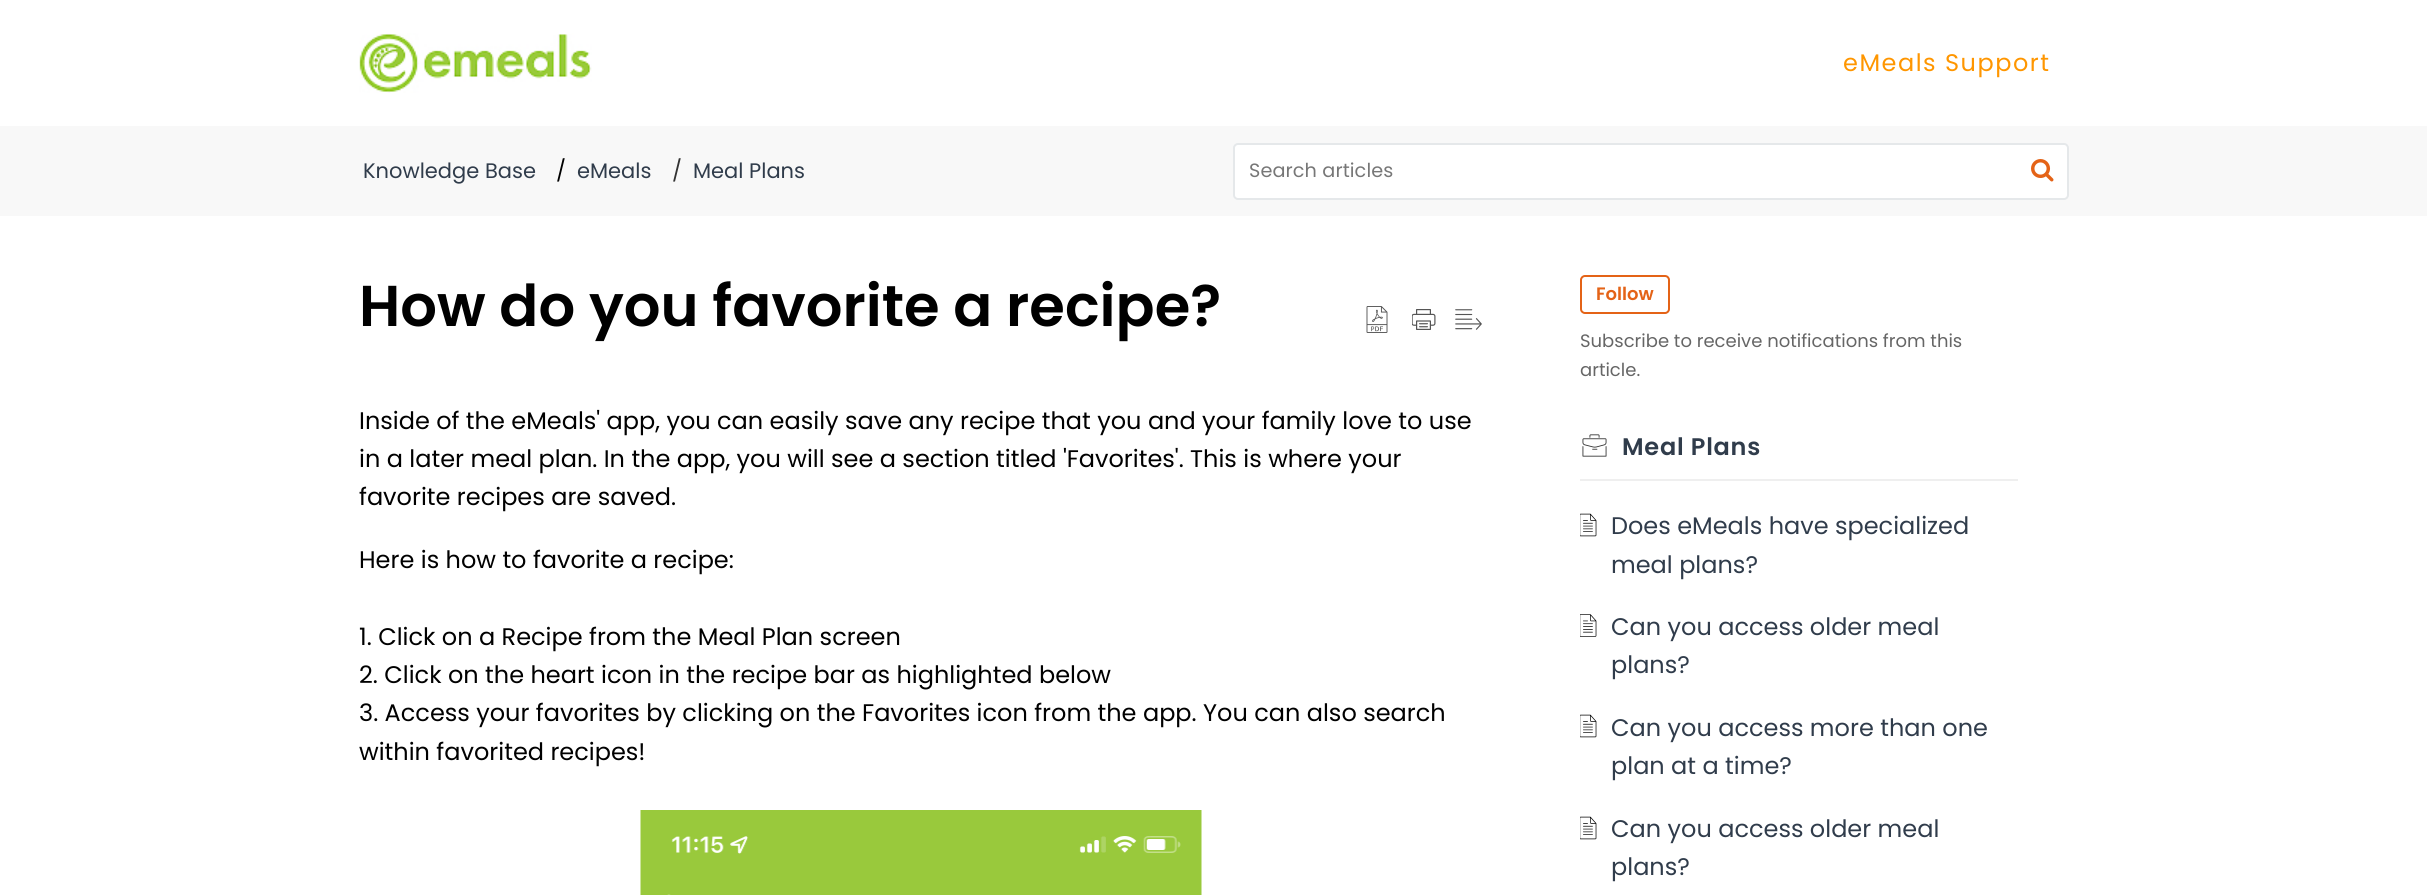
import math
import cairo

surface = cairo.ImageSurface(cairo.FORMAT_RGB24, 2427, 895)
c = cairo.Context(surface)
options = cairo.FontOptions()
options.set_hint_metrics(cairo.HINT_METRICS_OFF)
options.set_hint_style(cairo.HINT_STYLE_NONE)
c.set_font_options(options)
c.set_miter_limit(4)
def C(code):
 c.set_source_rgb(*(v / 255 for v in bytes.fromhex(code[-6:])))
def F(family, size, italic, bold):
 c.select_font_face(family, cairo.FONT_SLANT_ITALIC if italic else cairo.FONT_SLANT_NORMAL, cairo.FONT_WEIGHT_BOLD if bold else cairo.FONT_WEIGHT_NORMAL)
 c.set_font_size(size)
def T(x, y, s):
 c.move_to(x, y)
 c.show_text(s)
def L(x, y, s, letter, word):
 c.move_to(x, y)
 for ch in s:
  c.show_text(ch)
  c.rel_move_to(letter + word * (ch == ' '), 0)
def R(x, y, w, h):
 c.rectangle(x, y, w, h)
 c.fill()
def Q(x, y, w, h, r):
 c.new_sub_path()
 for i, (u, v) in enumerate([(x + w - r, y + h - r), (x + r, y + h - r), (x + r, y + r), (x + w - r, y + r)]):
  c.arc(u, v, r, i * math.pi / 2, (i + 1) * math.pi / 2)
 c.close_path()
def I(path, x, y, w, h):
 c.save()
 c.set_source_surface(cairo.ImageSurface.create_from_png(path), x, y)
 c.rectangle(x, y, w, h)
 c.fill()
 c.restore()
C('ffffff')
c.paint()
I('1.png',359,33,233,60)
F('Poppins',24,0,0)
C('ff9600')
L(1843,71,'eMeals Support',1.5,0)
C('f8f8f8')
R(0,126,2427,90)
F('Poppins',21,0,0)
C('303c4b')
T(363,178,'Knowledge Base')
C('000000')
T(556,178,'/')
C('303c4b')
T(577,178,'eMeals')
C('333333')
T(672,178,'/')
C('303c4b')
T(693,178,'Meal Plans')
C('ffffff')
Q(1234,144,834,55,4)
c.fill_preserve()
C('e5e8ea')
c.stroke()
F('Poppins',19.25,0,0)
C('777777')
L(1249,177,'Search articles',.1,0)
I('2.png',2031,159,23,23)
F('Poppins SemiBold',57.6,0,0)
C('000000')
T(359,326,'How do you favorite a recipe?')
I('3.png',1366,306,22,27)
I('4.png',1412,309,24,21)
I('5.png',1455,309,27,21)
F('Poppins',24,0,0)
T(359,429,'Inside of the eMeals\' app, you can easily save any recipe that you and your family love to use')
T(359,467,'in a later meal plan. In the app, you will see a section titled \'Favorites\'. This is where your')
T(359,505,'favorite recipes are saved.')
T(359,568,'Here is how to favorite a recipe:')
T(359,645,'1. Click on a Recipe from the Meal Plan screen')
T(359,683,'2. Click on the heart icon in the recipe bar as highlighted below')
T(359,721,'3. Access your favorites by clicking on the Favorites icon from the app. You can also search')
T(359,760,'within favorited recipes!')
I('6.png',640,810,562,85)
Q(1581,276,88,37,4)
C('e46317')
c.stroke()
F('Poppins SemiBold',18,0,0)
T(1596,300,'Follow')
F('Poppins',18,0,0)
C('666666')
T(1580,347,'Subscribe to receive notifications from this')
T(1580,376,'article.')
C('efefef')
R(1580,479,438,2)
I('7.png',1582,434,25,23)
F('Poppins SemiBold',24,0,0)
C('303c4b')
L(1622,455,'Meal Plans',.75,0)
I('8.png',1580,513,17,24)
F('Poppins',24,0,0)
T(1611,534,'Does eMeals have specialized')
T(1611,573,'meal plans?')
I('9.png',1580,614,17,23)
T(1611,635,'Can you access older meal')
T(1611,673,'plans?')
I('8.png',1580,714,17,24)
T(1611,736,'Can you access more than one')
T(1611,774,'plan at a time?')
I('8.png',1580,816,17,24)
T(1611,837,'Can you access older meal')
T(1611,875,'plans?')
surface.write_to_png('o.png')
